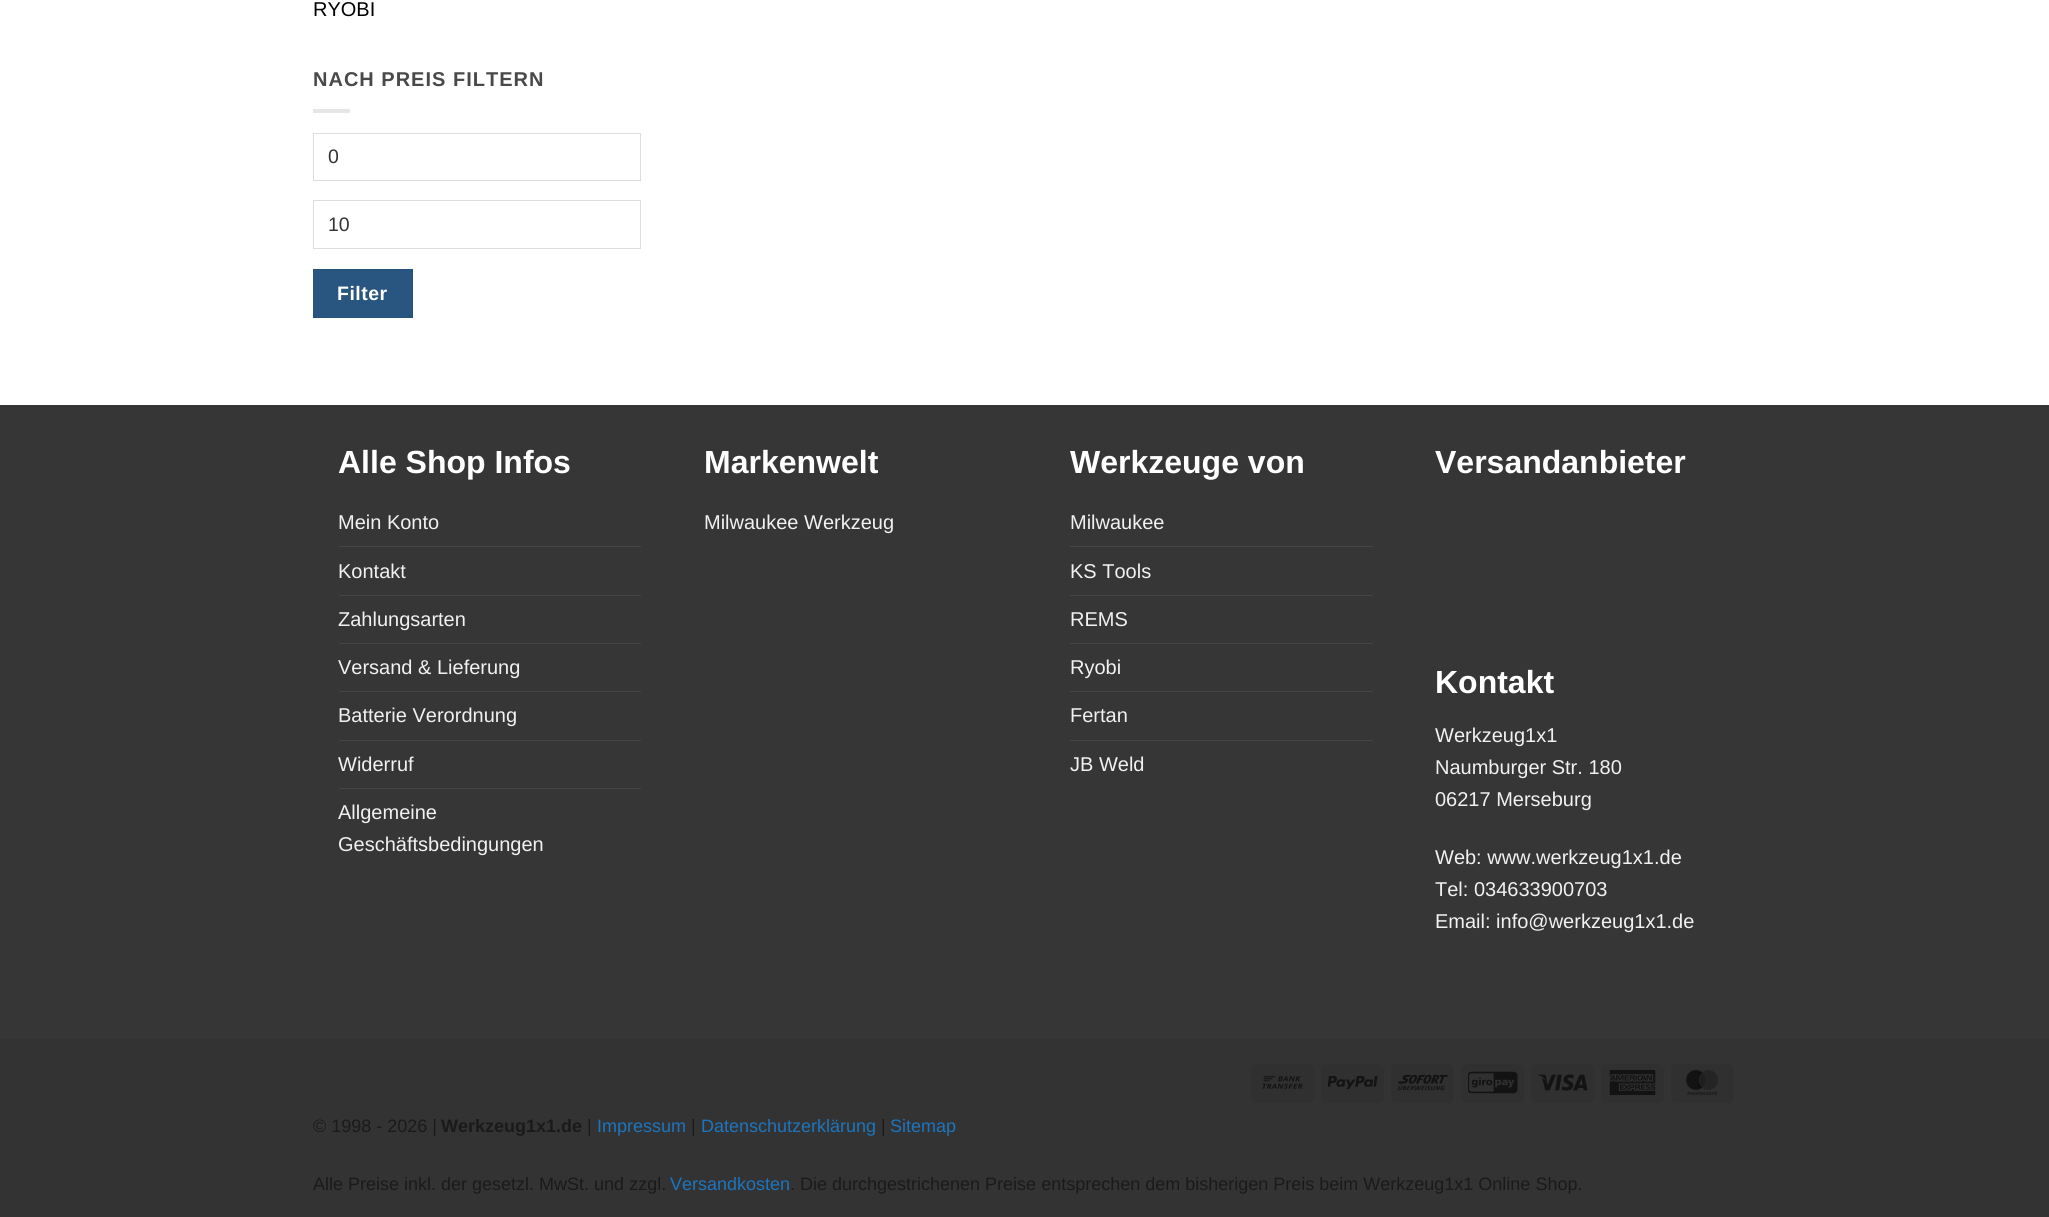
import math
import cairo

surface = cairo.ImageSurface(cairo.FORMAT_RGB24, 2049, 1217)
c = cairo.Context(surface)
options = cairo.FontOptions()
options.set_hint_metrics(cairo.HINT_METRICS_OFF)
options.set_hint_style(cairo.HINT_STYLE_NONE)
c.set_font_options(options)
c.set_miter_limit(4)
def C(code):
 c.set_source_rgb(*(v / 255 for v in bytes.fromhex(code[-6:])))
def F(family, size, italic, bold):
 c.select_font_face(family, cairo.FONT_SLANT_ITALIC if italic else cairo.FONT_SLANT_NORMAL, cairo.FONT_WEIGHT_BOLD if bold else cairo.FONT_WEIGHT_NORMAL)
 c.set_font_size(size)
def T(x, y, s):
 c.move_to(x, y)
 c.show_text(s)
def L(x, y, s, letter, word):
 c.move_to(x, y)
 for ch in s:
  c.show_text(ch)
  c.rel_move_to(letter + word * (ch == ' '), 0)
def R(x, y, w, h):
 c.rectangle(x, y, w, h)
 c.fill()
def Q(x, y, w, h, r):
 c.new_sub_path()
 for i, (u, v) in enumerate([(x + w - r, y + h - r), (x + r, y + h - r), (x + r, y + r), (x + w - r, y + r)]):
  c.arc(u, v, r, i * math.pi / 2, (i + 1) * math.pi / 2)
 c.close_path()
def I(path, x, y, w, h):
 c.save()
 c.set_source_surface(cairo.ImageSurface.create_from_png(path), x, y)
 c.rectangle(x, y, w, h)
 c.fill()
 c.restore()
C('ffffff')
c.paint()
F('Liberation Sans',20,0,0)
C('000000')
T(313,16,'RYOBI')
F('Liberation Sans',20,0,1)
C('494949')
L(313,86,'NACH PREIS FILTERN',1,0)
C('e6e6e6')
R(313,109,37,4)
c.rectangle(313.5,133.5,327,47)
C('dddddd')
c.set_line_width(1)
c.stroke()
F('Liberation Sans',19.5,0,0)
C('333333')
T(328,163,'0')
c.rectangle(313.5,200.5,327,48)
C('dddddd')
c.stroke()
C('333333')
T(328,231,'10')
C('295680')
c.rectangle(313.5,269.5,99,48)
c.fill_preserve()
C('27527a')
c.stroke()
F('Liberation Sans',19.5,0,1)
C('ffffff')
L(337,300,'Filter',.5,0)
C('363636')
R(0,405,2049,634)
F('Liberation Sans',32,0,1)
C('ffffff')
T(338,473,'Alle Shop Infos')
F('Liberation Sans',20,0,0)
C('f1f1f1')
T(338,529,'Mein Konto')
C('464646')
R(339,546,302,1)
C('f1f1f1')
T(338,578,'Kontakt')
C('464646')
R(339,595,302,1)
C('f1f1f1')
T(338,626,'Zahlungsarten')
C('464646')
R(339,643,302,1)
C('f1f1f1')
T(338,674,'Versand & Lieferung')
C('464646')
R(339,691,302,1)
C('f1f1f1')
T(338,722,'Batterie Verordnung')
C('464646')
R(339,740,302,1)
C('f1f1f1')
T(338,771,'Widerruf')
C('464646')
R(339,788,302,1)
C('f1f1f1')
T(338,819,'Allgemeine')
T(338,851,'Geschäftsbedingungen')
F('Liberation Sans',32,0,1)
C('ffffff')
T(704,473,'Markenwelt')
F('Liberation Sans',20,0,0)
C('f1f1f1')
T(704,529,'Milwaukee Werkzeug')
F('Liberation Sans',32,0,1)
C('ffffff')
T(1070,473,'Werkzeuge von')
F('Liberation Sans',20,0,0)
C('f1f1f1')
T(1070,529,'Milwaukee')
C('464646')
R(1070,546,303,1)
C('f1f1f1')
T(1070,578,'KS Tools')
C('464646')
R(1070,595,303,1)
C('f1f1f1')
T(1070,626,'REMS')
C('464646')
R(1070,643,303,1)
C('f1f1f1')
T(1070,674,'Ryobi')
C('464646')
R(1070,691,303,1)
C('f1f1f1')
T(1070,722,'Fertan')
C('464646')
R(1070,740,303,1)
C('f1f1f1')
T(1070,771,'JB Weld')
F('Liberation Sans',32,0,1)
C('ffffff')
T(1435,473,'Versandanbieter')
T(1435,693,'Kontakt')
F('Liberation Sans',20,0,0)
C('f1f1f1')
T(1435,742,'Werkzeug1x1')
T(1435,774,'Naumburger Str. 180')
T(1435,806,'06217 Merseburg')
T(1435,864,'Web: www.werkzeug1x1.de')
T(1435,896,'Tel: 034633900703')
T(1435,928,'Email: info@werkzeug1x1.de')
C('333333')
R(0,1039,2049,178)
C('303030')
Q(1251,1064,63,39,6)
c.fill()
I('1.png',1262,1076,41,13)
Q(1321,1064,63,39,6)
c.fill()
I('2.png',1328,1076,50,13)
Q(1391,1064,63,39,6)
c.fill()
I('3.png',1398,1074,50,17)
Q(1461,1064,63,39,6)
c.fill()
I('4.png',1468,1071,50,23)
Q(1531,1064,63,39,6)
c.fill()
I('5.png',1538,1074,50,17)
Q(1601,1064,63,39,6)
c.fill()
I('6.png',1609,1070,47,25)
Q(1671,1064,63,39,6)
c.fill()
I('7.png',1686,1070,32,25)
F('Liberation Sans',18,0,0)
C('1a1a1a')
T(313,1132,'© 1998 - 2026 |')
F('Liberation Sans',18,0,1)
T(441,1132,'Werkzeug1x1.de')
F('Liberation Sans',18,0,0)
T(587,1132,'|')
C('1d75bd')
T(597,1132,'Impressum')
C('1a1a1a')
T(691,1132,'|')
C('1d75bd')
T(701,1132,'Datenschutzerklärung')
C('1a1a1a')
T(881,1132,'|')
C('1d75bd')
T(890,1132,'Sitemap')
C('1a1a1a')
T(313,1190,'Alle Preise inkl. der gesetzl. MwSt. und zzgl.')
C('1d75bd')
T(670,1190,'Versandkosten')
C('1a1a1a')
T(790,1190,'. Die durchgestrichenen Preise entsprechen dem bisherigen Preis beim Werkzeug1x1 Online Shop.')
surface.write_to_png('o.png')
